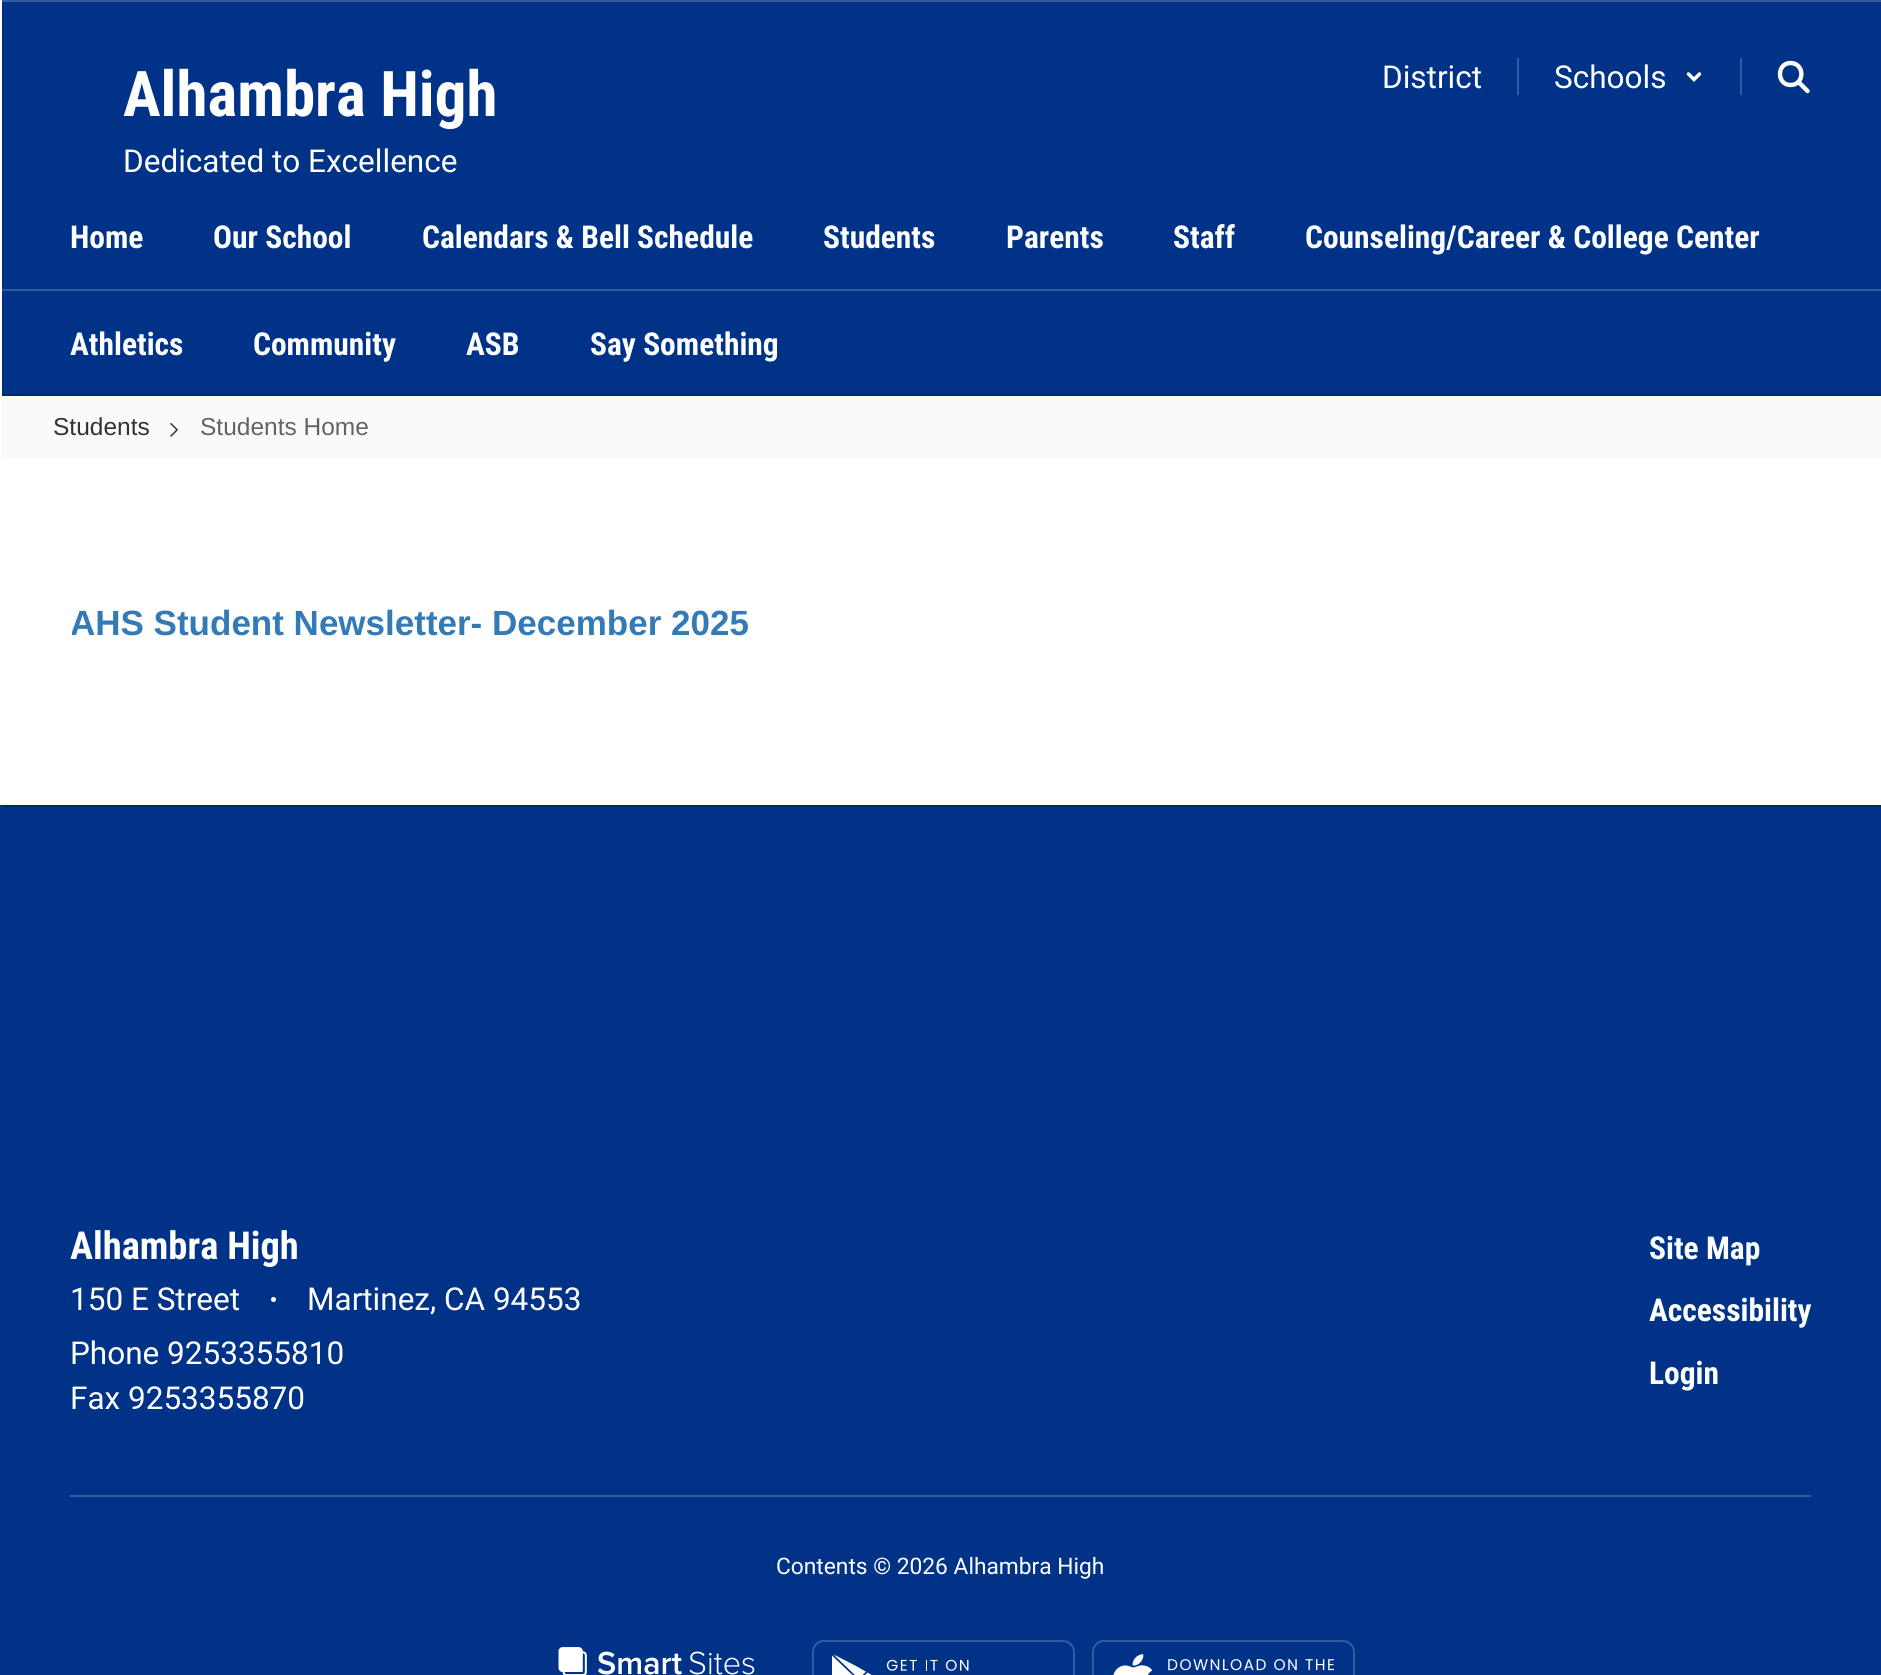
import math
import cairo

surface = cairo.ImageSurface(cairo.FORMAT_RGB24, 1881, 1675)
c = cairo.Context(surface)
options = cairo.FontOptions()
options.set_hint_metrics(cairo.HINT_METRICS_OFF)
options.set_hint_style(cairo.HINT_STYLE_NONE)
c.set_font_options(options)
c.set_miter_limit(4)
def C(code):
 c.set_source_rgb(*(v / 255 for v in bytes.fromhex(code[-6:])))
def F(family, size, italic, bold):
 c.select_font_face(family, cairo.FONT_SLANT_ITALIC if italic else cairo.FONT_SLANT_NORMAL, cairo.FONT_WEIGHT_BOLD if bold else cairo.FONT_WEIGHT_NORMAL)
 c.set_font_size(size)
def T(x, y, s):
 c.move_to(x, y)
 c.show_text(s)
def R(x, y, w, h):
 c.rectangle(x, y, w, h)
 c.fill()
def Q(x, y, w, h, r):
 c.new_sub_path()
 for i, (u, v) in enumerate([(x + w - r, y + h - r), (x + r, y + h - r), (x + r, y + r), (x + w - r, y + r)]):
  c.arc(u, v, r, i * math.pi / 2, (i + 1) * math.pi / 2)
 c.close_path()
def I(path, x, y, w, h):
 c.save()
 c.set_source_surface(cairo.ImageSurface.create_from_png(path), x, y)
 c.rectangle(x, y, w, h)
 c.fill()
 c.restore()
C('ffffff')
c.paint()
C('003388')
R(2,2,1879,392)
C('335ca0')
R(2,0,1879,2)
F('Roboto Condensed',63,0,1)
C('ffffff')
T(123,116,'Alhambra High')
F('Roboto',31.5,0,0)
T(123,172,'Dedicated to Excellence')
C('335ca0')
R(1517,58,2,37)
C('ffffff')
T(1382,88,'District')
C('335ca0')
R(1740,58,2,37)
C('ffffff')
T(1554,88,'Schools')
c.new_path()
c.move_to(1688.5,74)
c.line_to(1694,79.5)
c.line_to(1699.5,74)
c.set_line_width(3.5)
c.set_line_cap(cairo.LINE_CAP_ROUND)
c.stroke()
c.new_path()
c.move_to(1790.5,85)
c.curve_to(1805,85,1805,63,1790.5,63)
c.curve_to(1776.5,63,1776.5,85,1790.5,85)
c.close_path()
c.set_line_width(4.4)
c.set_line_cap(cairo.LINE_CAP_SQUARE)
c.set_line_join(cairo.LINE_JOIN_ROUND)
c.stroke()
c.new_path()
c.move_to(1807.5,91)
c.line_to(1798.5,82)
c.set_line_cap(cairo.LINE_CAP_ROUND)
c.stroke()
F('Roboto Condensed',31.5,0,1)
T(70,248,'Home')
T(213,248,'Our School')
T(422,248,'Calendars & Bell Schedule')
T(823,248,'Students')
T(1006,248,'Parents')
T(1173,248,'Staff')
T(1305,248,'Counseling/Career & College Center')
C('335ca0')
R(2,289,1879,2)
C('ffffff')
T(70,355,'Athletics')
T(253,355,'Community')
T(466,355,'ASB')
T(590,355,'Say Something')
C('00296d')
R(2,394,1879,2)
C('fafafa')
R(2,396,1879,63)
F('Liberation Sans',24.5,0,0)
C('333333')
T(53,435,'Students')
I('1.png',170,423,8,14)
C('636363')
T(200,435,'Students Home')
c.save()
c.rectangle(72,599,1741,66)
c.clip()
F('Liberation Sans',35,0,1)
C('337ab7')
T(70,635,'AHS Student Newsletter- December 2025')
c.restore()
C('003388')
R(0,805,1881,870)
C('00296d')
R(2,805,1879,2)
F('Roboto Condensed',38.5,0,1)
C('ffffff')
T(70,1259,'Alhambra High')
F('Roboto',31.5,0,0)
T(70,1310,'150 E Street')
c.new_path()
c.arc(273.5,1299.5,2.5,0,2 * math.pi)
c.fill()
T(307,1310,'Martinez, CA 94553')
T(70,1364,'Phone 9253355810')
T(70,1409,'Fax 9253355870')
F('Roboto Condensed',31.5,0,1)
T(1649,1259,'Site Map')
T(1649,1321,'Accessibility')
T(1649,1384,'Login')
C('335ca0')
R(70,1495,1741,2)
F('Roboto',22.75,0,0)
C('ffffff')
T(776,1574,'Contents © 2026 Alhambra High')
I('2.png',558,1647,197,28)
Q(813,1641,261,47,11)
C('335ca0')
c.set_line_width(2)
c.set_line_cap(cairo.LINE_CAP_BUTT)
c.set_line_join(cairo.LINE_JOIN_MITER)
c.stroke()
I('3.png',832,1654,137,21)
Q(1093,1641,261,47,11)
c.stroke()
I('4.png',1113,1654,221,21)
surface.write_to_png('o.png')
